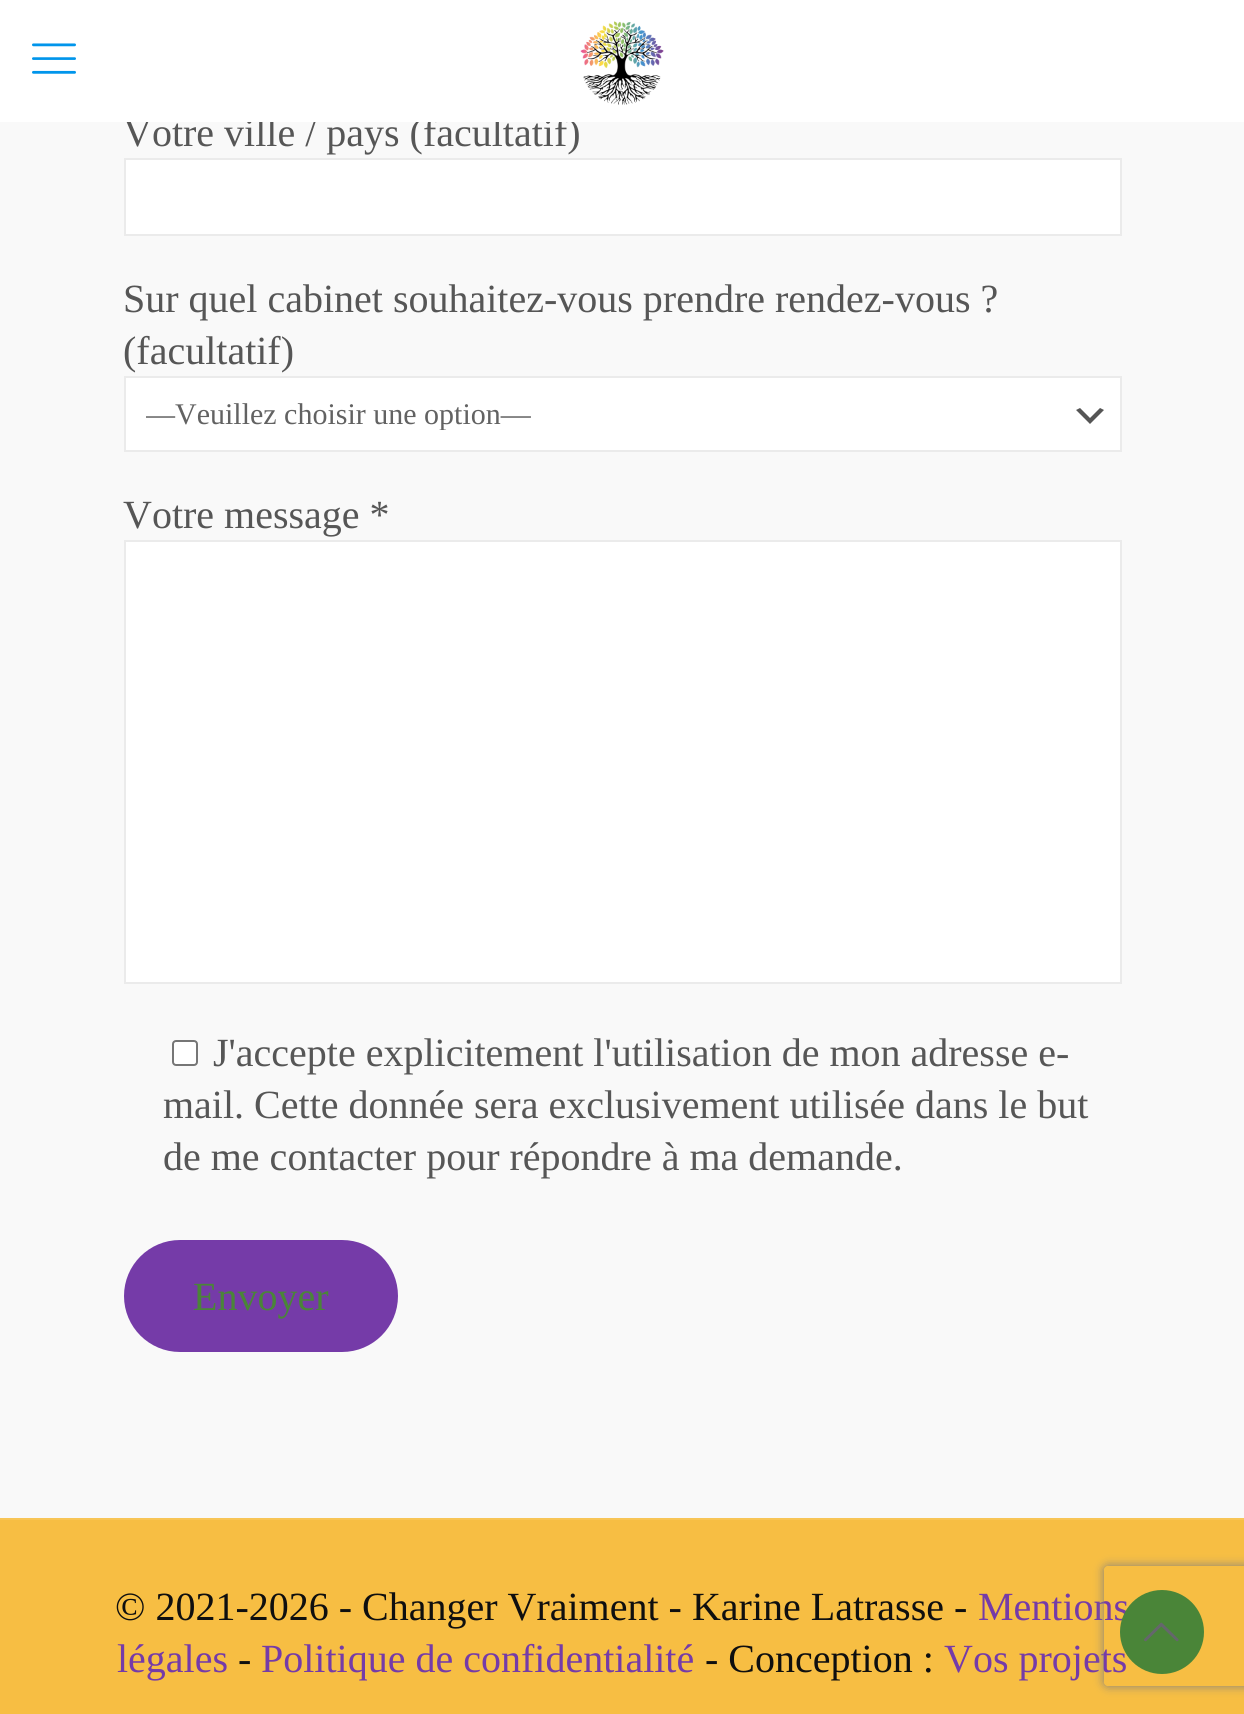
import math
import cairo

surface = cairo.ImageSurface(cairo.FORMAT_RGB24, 1244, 1714)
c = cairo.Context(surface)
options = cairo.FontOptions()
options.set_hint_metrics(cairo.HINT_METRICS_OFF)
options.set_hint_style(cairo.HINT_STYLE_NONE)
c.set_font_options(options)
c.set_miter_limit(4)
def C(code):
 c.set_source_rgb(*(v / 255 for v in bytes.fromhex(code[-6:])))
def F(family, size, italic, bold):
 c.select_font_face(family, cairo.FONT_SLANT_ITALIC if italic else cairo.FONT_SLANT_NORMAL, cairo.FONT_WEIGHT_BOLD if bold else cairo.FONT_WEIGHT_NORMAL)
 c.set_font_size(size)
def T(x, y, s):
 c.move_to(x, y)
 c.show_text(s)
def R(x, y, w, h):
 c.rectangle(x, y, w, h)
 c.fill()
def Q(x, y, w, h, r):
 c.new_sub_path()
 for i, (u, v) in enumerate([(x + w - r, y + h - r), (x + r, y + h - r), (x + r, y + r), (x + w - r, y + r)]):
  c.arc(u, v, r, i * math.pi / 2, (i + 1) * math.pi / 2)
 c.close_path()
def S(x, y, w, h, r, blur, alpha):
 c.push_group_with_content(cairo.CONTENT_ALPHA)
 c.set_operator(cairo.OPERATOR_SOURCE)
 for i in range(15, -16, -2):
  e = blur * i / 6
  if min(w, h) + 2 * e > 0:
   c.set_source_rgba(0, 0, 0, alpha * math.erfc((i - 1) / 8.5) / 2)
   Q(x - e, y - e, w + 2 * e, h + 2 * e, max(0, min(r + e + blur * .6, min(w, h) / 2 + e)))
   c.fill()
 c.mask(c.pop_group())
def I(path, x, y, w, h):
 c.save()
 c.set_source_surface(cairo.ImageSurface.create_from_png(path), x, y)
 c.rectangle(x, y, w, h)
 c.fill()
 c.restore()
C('f9f9f9')
c.paint()
F('Liberation Serif',40,0,0)
C('565656')
T(123,146,'Votre ville / pays (facultatif)')
C('ffffff')
R(0,0,1244,122)
I('1.png',32,43,44,31)
I('2.png',580,21,84,84)
c.rectangle(125,159,996,76)
c.fill_preserve()
C('ebebeb')
c.stroke()
C('565656')
T(123,312,'Sur quel cabinet souhaitez-vous prendre rendez-vous ?')
T(123,364,'(facultatif)')
C('ffffff')
R(126,378,994,72)
C('555555')
c.new_path()
c.move_to(1080,408)
c.line_to(1090,418)
c.line_to(1100,408)
c.line_to(1104,410)
c.line_to(1090,424)
c.line_to(1076,410)
c.close_path()
c.fill()
c.rectangle(125,377,996,74)
C('ebebeb')
c.stroke()
c.save()
c.rectangle(146,398,924,32)
c.clip()
F('Liberation Serif',30,0,0)
C('626262')
T(145,424,'—Veuillez choisir une option—')
c.restore()
C('565656')
T(123,528,'Votre message *')
C('ffffff')
c.rectangle(125,541,996,442)
c.fill_preserve()
C('ebebeb')
c.stroke()
C('ffffff')
Q(173,1041,24,24,3)
c.fill_preserve()
C('767676')
c.stroke()
C('565656')
T(213,1066,'J\'accepte explicitement l\'utilisation de mon adresse e-')
T(163,1118,'mail. Cette donnée sera exclusivement utilisée dans le but')
T(163,1170,'de me contacter pour répondre à ma demande.')
C('753ba8')
Q(124,1240,274,112,56)
c.fill()
C('4a8538')
T(193,1310,'Envoyer')
C('f7be43')
R(0,1520,1244,194)
C('f8c556')
R(0,1518,1244,2)
C('0f0f0f')
T(115,1620,'© 2021-2026 - Changer Vraiment - Karine Latrasse -')
C('753ba8')
T(978,1620,'Mentions')
T(117,1672,'légales')
C('0f0f0f')
T(238,1672,'-')
C('753ba8')
T(261,1672,'Politique de confidentialité')
C('0f0f0f')
T(705,1672,'- Conception :')
C('753ba8')
T(944,1672,'Vos projets')
c.save()
c.set_fill_rule(cairo.FILL_RULE_EVEN_ODD)
c.new_path()
c.move_to(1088,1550)
c.line_to(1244,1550)
c.line_to(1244,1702)
c.line_to(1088,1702)
c.close_path()
c.move_to(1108,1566)
c.line_to(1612,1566)
c.curve_to(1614,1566,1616,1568,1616,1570)
c.line_to(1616,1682)
c.curve_to(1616,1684,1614,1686,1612,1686)
c.line_to(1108,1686)
c.curve_to(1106,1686,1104,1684,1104,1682)
c.line_to(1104,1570)
c.curve_to(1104,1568,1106,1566,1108,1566)
c.close_path()
c.clip()
C('808080')
S(1104,1566,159,120,4,5,1)
c.restore()
C('4a8538')
c.arc(1162,1632,42,0,2 * math.pi)
c.fill()
I('3.png',1144,1622,35,20)
surface.write_to_png('o.png')
